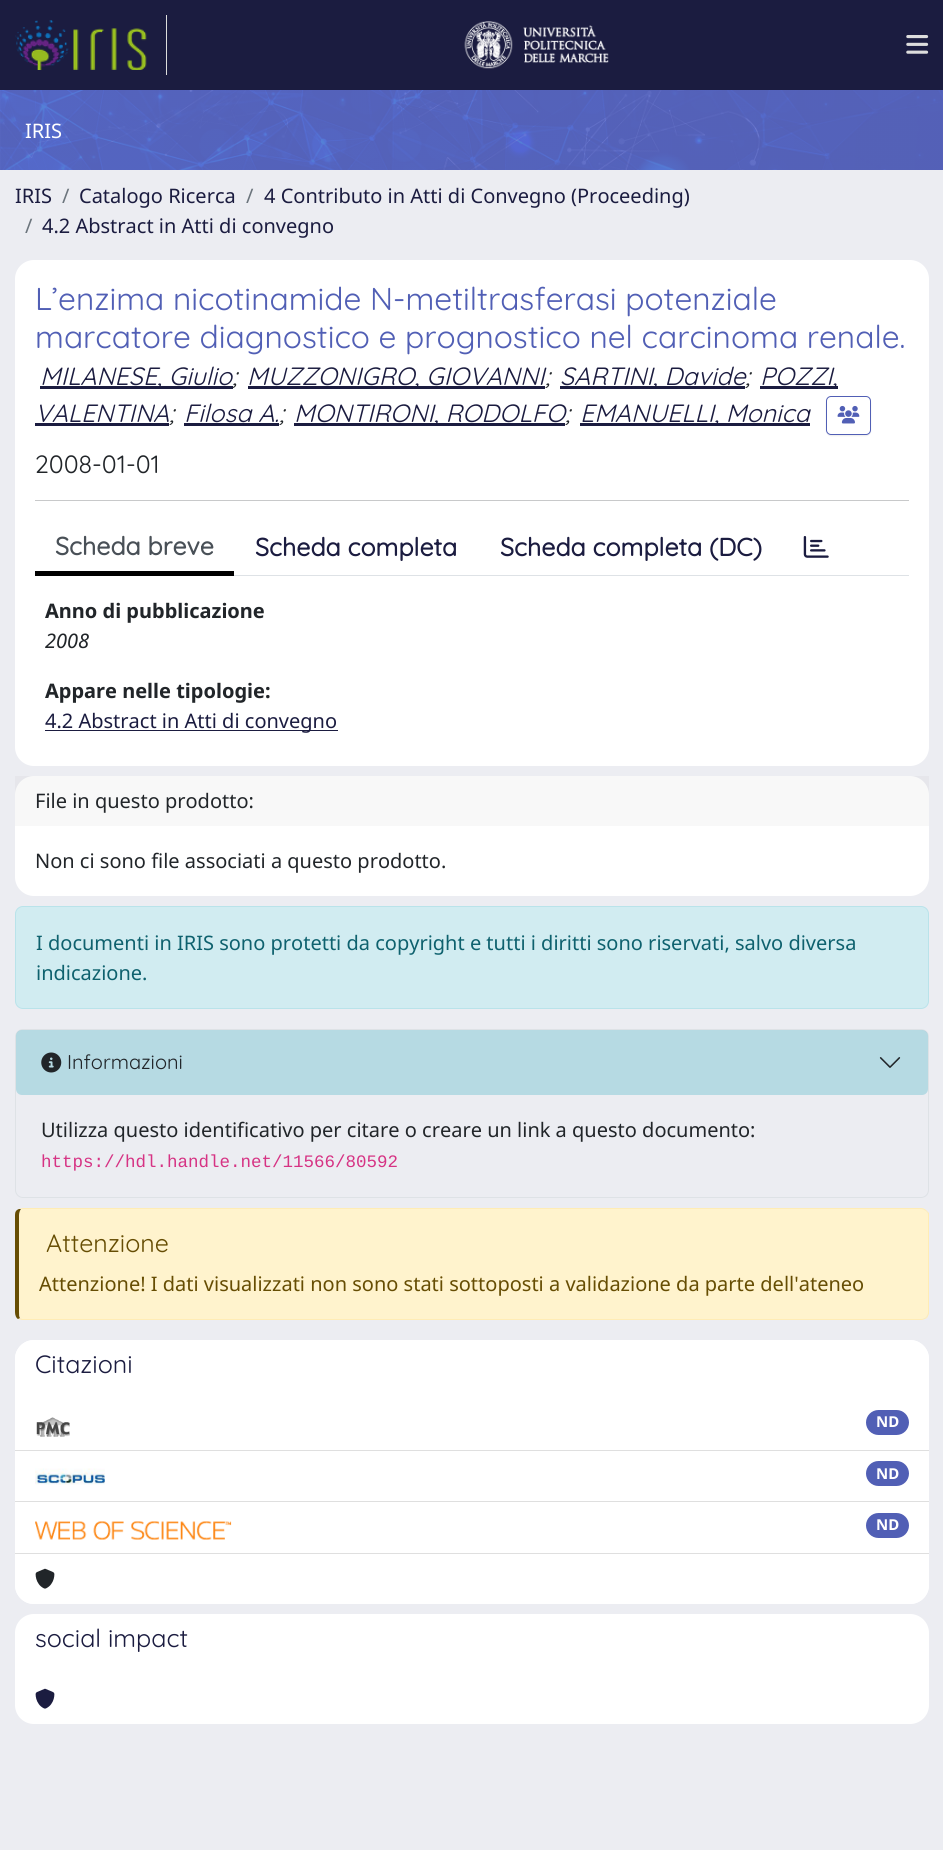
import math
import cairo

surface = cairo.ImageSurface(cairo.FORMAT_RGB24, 943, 1850)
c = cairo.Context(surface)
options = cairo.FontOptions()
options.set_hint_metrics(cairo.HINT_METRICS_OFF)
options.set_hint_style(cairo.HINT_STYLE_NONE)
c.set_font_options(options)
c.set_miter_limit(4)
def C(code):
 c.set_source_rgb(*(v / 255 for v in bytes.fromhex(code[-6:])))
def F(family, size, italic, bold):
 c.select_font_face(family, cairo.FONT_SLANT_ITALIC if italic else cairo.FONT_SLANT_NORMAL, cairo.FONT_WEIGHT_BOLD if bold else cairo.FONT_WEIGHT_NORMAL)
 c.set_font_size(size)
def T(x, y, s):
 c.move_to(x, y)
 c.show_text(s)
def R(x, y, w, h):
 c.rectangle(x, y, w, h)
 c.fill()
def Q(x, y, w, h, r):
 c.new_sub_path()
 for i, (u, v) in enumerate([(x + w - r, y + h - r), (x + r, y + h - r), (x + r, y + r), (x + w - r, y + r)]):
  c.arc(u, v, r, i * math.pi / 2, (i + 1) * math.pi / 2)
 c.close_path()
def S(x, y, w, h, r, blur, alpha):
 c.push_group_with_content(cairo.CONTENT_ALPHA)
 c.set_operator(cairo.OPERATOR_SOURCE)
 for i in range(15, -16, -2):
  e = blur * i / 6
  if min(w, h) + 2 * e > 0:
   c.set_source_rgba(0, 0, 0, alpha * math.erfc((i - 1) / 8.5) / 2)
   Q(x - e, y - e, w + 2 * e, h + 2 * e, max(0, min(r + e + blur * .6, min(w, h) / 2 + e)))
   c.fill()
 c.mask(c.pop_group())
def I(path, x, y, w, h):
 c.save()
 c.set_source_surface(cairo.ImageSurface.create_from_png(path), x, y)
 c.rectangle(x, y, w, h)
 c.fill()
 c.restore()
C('ecedf2')
c.paint()
C('1b1c40')
R(0,0,943,90)
C('dddddd')
R(166,15,1,60)
I('1.png',15,20,132,50)
I('2.png',464,21,145,48)
I('3.png',906,35,23,19)
I('4.png',0,90,943,80)
F('Noto Sans',20,0,0)
C('ffffff')
T(25,138,'IRIS')
C('1b1c40')
T(15,203,'IRIS')
C('6c757d')
T(62,203,'/')
C('1b1c40')
T(79,203,'Catalogo Ricerca')
C('6c757d')
T(246,203,'/')
C('1b1c40')
T(264,203,'4 Contributo in Atti di Convegno (Proceeding)')
C('6c757d')
T(25,233,'/')
C('1b1c40')
T(42,233,'4.2 Abstract in Atti di convegno')
C('ffffff')
Q(15,260,914,506,19)
c.fill()
F('Quicksand',31.65,0,0)
C('515fb5')
T(35,310,'L’enzima nicotinamide N-metiltrasferasi potenziale')
T(35,348,'marcatore diagnostico e prognostico nel carcinoma renale.')
C('1b1c40')
R(40,386,193,3)
F('Quicksand',25,1,0)
T(40,385,'MILANESE, Giulio')
C('212529')
T(232,385,';')
C('1b1c40')
R(248,386,297,3)
T(247,385,'MUZZONIGRO, GIOVANNI')
C('212529')
T(545,385,';')
C('1b1c40')
R(560,386,185,3)
T(560,385,'SARTINI, Davide')
C('212529')
T(745,385,';')
C('1b1c40')
R(760,386,78,3)
T(760,385,'POZZI,')
T(35,422,'VALENTINA')
C('212529')
T(169,422,';')
C('1b1c40')
R(35,423,134,3)
T(184,422,'Filosa A.')
C('212529')
T(279,422,';')
C('1b1c40')
R(184,423,95,3)
R(294,423,271,3)
T(294,422,'MONTIRONI, RODOLFO')
C('212529')
T(565,422,';')
C('1b1c40')
R(580,423,230,3)
T(580,422,'EMANUELLI, Monica')
c.save()
c.set_fill_rule(cairo.FILL_RULE_EVEN_ODD)
c.new_path()
c.move_to(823,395)
c.line_to(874,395)
c.line_to(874,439)
c.line_to(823,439)
c.close_path()
c.move_to(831,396)
c.line_to(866,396)
c.curve_to(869,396,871,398,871,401)
c.line_to(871,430)
c.curve_to(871,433,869,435,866,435)
c.line_to(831,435)
c.curve_to(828,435,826,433,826,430)
c.line_to(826,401)
c.curve_to(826,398,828,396,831,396)
c.close_path()
c.clip()
C('000000')
S(826,398,45,38,5,.5,.07)
c.restore()
Q(826.5,396.5,44,38,4.5)
C('515fb5')
c.set_line_width(1)
c.stroke()
I('5.png',837,405,23,19)
F('Quicksand',25,0,0)
C('212529')
T(35,473,'2008-01-01')
C('c8c9ca')
R(35,500,874,1)
C('dee2e6')
R(234,575,675,1)
C('000000')
R(35,571,199,5)
F('Quicksand',25,0,1)
C('495057')
T(55,555,'Scheda breve')
C('1b1c40')
T(255,556,'Scheda completa')
T(500,556,'Scheda completa (DC)')
I('6.png',803,536,26,22)
F('Noto Sans',20,0,1)
C('212529')
T(45,618,'Anno di pubblicazione')
F('Noto Sans',20,1,0)
T(45,648,'2008')
F('Noto Sans',20,0,1)
T(45,698,'Appare nelle tipologie:')
C('1b1c40')
R(45,730,293,1)
F('Noto Sans',20,0,0)
T(45,728,'4.2 Abstract in Atti di convegno')
C('ffffff')
Q(15,776,914,120,19)
c.fill()
c.set_source_rgba(0,0,0,0.03)
R(15,776,914,50)
C('212529')
T(35,808,'File in questo prodotto:')
T(35,868,'Non ci sono file associati a questo prodotto.')
C('d1ecf1')
Q(15.5,906.5,913,102,7.5)
c.fill_preserve()
C('b9e3ea')
c.stroke()
C('0e616e')
T(36,950,'I documenti in IRIS sono protetti da copyright e tutti i diritti sono riservati, salvo diversa')
T(36,980,'indicazione.')
Q(15.5,1029.5,913,168,7.5)
C('dee2e6')
c.stroke()
c.set_source_rgba(0.09,0.635,0.722,0.25)
Q(16,1030,912,65,6)
c.fill()
I('7.png',41,1052,21,21)
F('Quicksand',20,0,0)
C('212529')
T(67,1069,'Informazioni')
I('8.png',879,1057,22,11)
F('Noto Sans',20,0,0)
T(41,1137,'Utilizza questo identificativo per citare o creare un link a questo documento:')
F('Liberation Mono',17.5,0,0)
C('d63384')
T(41,1167,'https://hdl.handle.net/11566/80592')
C('fff3cd')
c.new_path()
c.move_to(22,1209)
c.line_to(921,1209)
c.curve_to(925,1209,928,1212,928,1215)
c.line_to(928,1312)
c.curve_to(928,1316,925,1319,921,1319)
c.line_to(22,1319)
c.curve_to(20,1319,19,1316,19,1312)
c.line_to(19,1215)
c.curve_to(19,1212,20,1209,22,1209)
c.close_path()
c.fill()
C('ffecb5')
c.new_path()
c.move_to(22,1208)
c.line_to(19,1209)
c.line_to(21,1209)
c.line_to(22,1209)
c.line_to(921,1209)
c.curve_to(923,1209,924,1210,926,1211)
c.line_to(926,1210)
c.curve_to(925,1209,923,1208,921,1208)
c.close_path()
c.fill()
c.new_path()
c.move_to(926,1210)
c.line_to(929,1213)
c.line_to(929,1314)
c.line_to(927,1318)
c.line_to(926,1317)
c.curve_to(927,1316,928,1314,928,1312)
c.line_to(928,1215)
c.curve_to(928,1213,927,1212,926,1211)
c.close_path()
c.fill()
c.new_path()
c.move_to(22,1320)
c.line_to(921,1320)
c.curve_to(923,1320,925,1319,927,1318)
c.line_to(926,1317)
c.curve_to(925,1318,923,1319,921,1319)
c.line_to(22,1319)
c.line_to(20,1318)
c.line_to(18,1319)
c.close_path()
c.fill()
C('664d03')
c.new_path()
c.move_to(15,1215)
c.line_to(15,1312)
c.curve_to(15,1315,16,1318,18,1319)
c.line_to(20,1318)
c.curve_to(19,1317,19,1315,19,1312)
c.line_to(19,1215)
c.curve_to(19,1213,20,1210,21,1209)
c.line_to(19,1209)
c.curve_to(16,1210,15,1212,15,1215)
c.close_path()
c.fill()
F('Quicksand',25,0,0)
T(46,1252,'Attenzione')
F('Noto Sans',20,0,0)
T(39,1291,'Attenzione! I dati visualizzati non sono stati sottoposti a validazione da parte dell\'ateneo')
C('ffffff')
Q(15,1340,914,264,19)
c.fill()
c.new_path()
c.move_to(34,1340)
c.line_to(910,1340)
c.curve_to(920.5,1340,929,1348.5,929,1359)
c.line_to(929,1400)
c.line_to(15,1400)
c.line_to(15,1359)
c.curve_to(15,1348.5,23.5,1340,34,1340)
c.close_path()
c.fill()
F('Quicksand',25,0,0)
C('1b1c40')
T(35,1373,'Citazioni')
C('dfdfdf')
R(15,1450,914,1)
I('9.png',36,1417,34,20)
C('515fb5')
Q(866,1410,43,25,12.5)
c.fill()
F('Noto Sans',15,0,1)
C('ffffff')
T(876,1427,'ND')
C('dfdfdf')
R(15,1501,914,1)
I('10.png',35,1468,70,17)
C('515fb5')
Q(866,1461,43,25,12.5)
c.fill()
C('ffffff')
T(876,1479,'ND')
C('dfdfdf')
R(15,1553,914,1)
I('11.png',35,1521,197,19)
C('515fb5')
Q(866,1513,43,25,12.5)
c.fill()
C('ffffff')
T(876,1530,'ND')
c.new_path()
c.move_to(15,1554)
c.line_to(929,1554)
c.line_to(929,1585)
c.curve_to(929,1595.5,920.5,1604,910,1604)
c.line_to(34,1604)
c.curve_to(23.5,1604,15,1595.5,15,1585)
c.close_path()
c.fill()
I('12.png',35,1568,20,21)
c.new_path()
c.move_to(34,1614)
c.line_to(910,1614)
c.curve_to(920.5,1614,929,1622.5,929,1633)
c.line_to(929,1674)
c.line_to(15,1674)
c.line_to(15,1633)
c.curve_to(15,1622.5,23.5,1614,34,1614)
c.close_path()
c.fill()
F('Quicksand',25,0,0)
C('1b1c40')
T(35,1647,'social impact')
C('ffffff')
c.new_path()
c.move_to(15,1674)
c.line_to(929,1674)
c.line_to(929,1705)
c.curve_to(929,1715.5,920.5,1724,910,1724)
c.line_to(34,1724)
c.curve_to(23.5,1724,15,1715.5,15,1705)
c.close_path()
c.fill()
I('13.png',35,1688,20,21)
surface.write_to_png('o.png')
